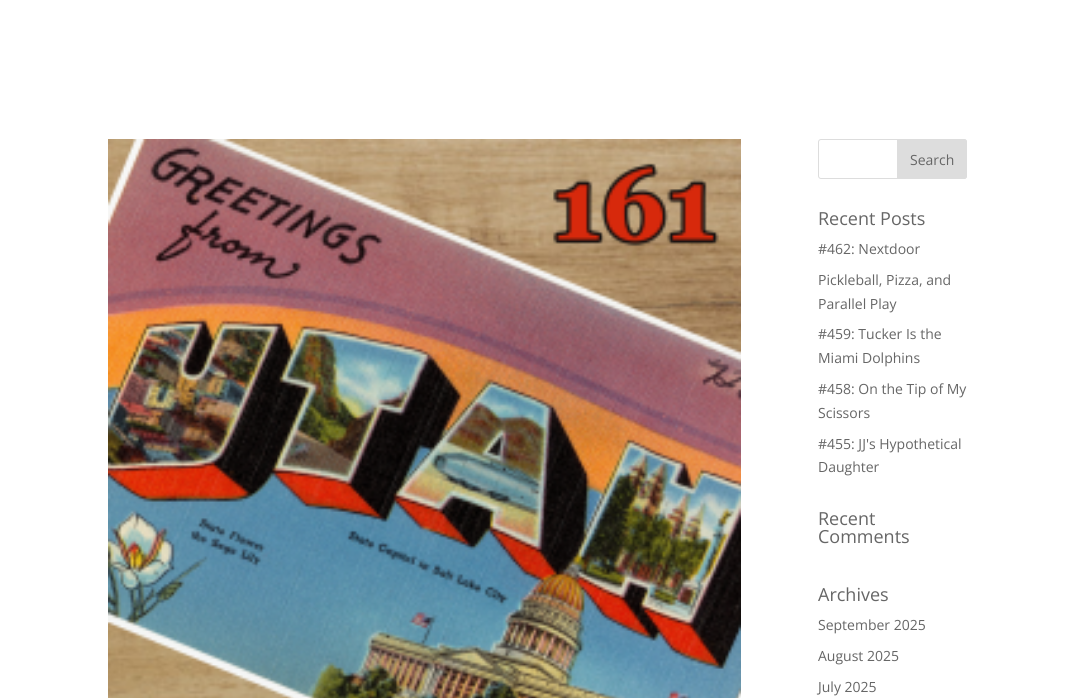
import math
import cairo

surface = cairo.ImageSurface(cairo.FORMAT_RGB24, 1075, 698)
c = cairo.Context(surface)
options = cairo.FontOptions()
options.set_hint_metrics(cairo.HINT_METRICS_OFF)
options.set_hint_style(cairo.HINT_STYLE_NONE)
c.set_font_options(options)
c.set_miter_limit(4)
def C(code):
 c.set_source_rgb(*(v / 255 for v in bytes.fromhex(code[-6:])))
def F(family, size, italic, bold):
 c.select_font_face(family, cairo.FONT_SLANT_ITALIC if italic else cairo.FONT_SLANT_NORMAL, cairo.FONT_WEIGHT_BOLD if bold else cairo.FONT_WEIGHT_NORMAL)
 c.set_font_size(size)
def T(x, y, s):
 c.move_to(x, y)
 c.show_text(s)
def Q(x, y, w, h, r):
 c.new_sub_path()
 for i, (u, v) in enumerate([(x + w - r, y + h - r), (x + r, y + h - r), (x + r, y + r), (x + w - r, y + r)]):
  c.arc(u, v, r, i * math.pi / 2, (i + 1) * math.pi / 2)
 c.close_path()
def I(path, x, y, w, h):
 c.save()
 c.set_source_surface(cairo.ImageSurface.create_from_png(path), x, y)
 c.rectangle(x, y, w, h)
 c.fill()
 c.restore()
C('ffffff')
c.paint()
I('1.png',108,139,633,559)
Q(818.5,139.5,148,39,2.5)
C('dddddd')
c.set_line_width(1)
c.stroke()
c.new_path()
c.move_to(897.5,139.5)
c.line_to(964,139.5)
c.curve_to(965.5,139.5,966.5,140.5,966.5,142)
c.line_to(966.5,176)
c.curve_to(966.5,177.5,965.5,178.5,964,178.5)
c.line_to(897.5,178.5)
c.close_path()
c.fill_preserve()
c.stroke()
F('Open Sans',14,0,0)
C('666666')
T(910,165,'Search')
F('Open Sans',18,0,0)
T(818,225,'Recent Posts')
F('Open Sans',14,0,0)
T(818,254,'#462: Nextdoor')
T(818,285,'Pickleball, Pizza, and')
T(818,309,'Parallel Play')
T(818,339,'#459: Tucker Is the')
T(818,363,'Miami Dolphins')
T(818,394,'#458: On the Tip of My')
T(818,418,'Scissors')
T(818,449,'#455: JJ\'s Hypothetical')
T(818,472,'Daughter')
F('Open Sans',18,0,0)
T(818,525,'Recent')
T(818,543,'Comments')
T(818,601,'Archives')
F('Open Sans',14,0,0)
T(818,630,'September 2025')
T(818,661,'August 2025')
T(818,692,'July 2025')
surface.write_to_png('o.png')
